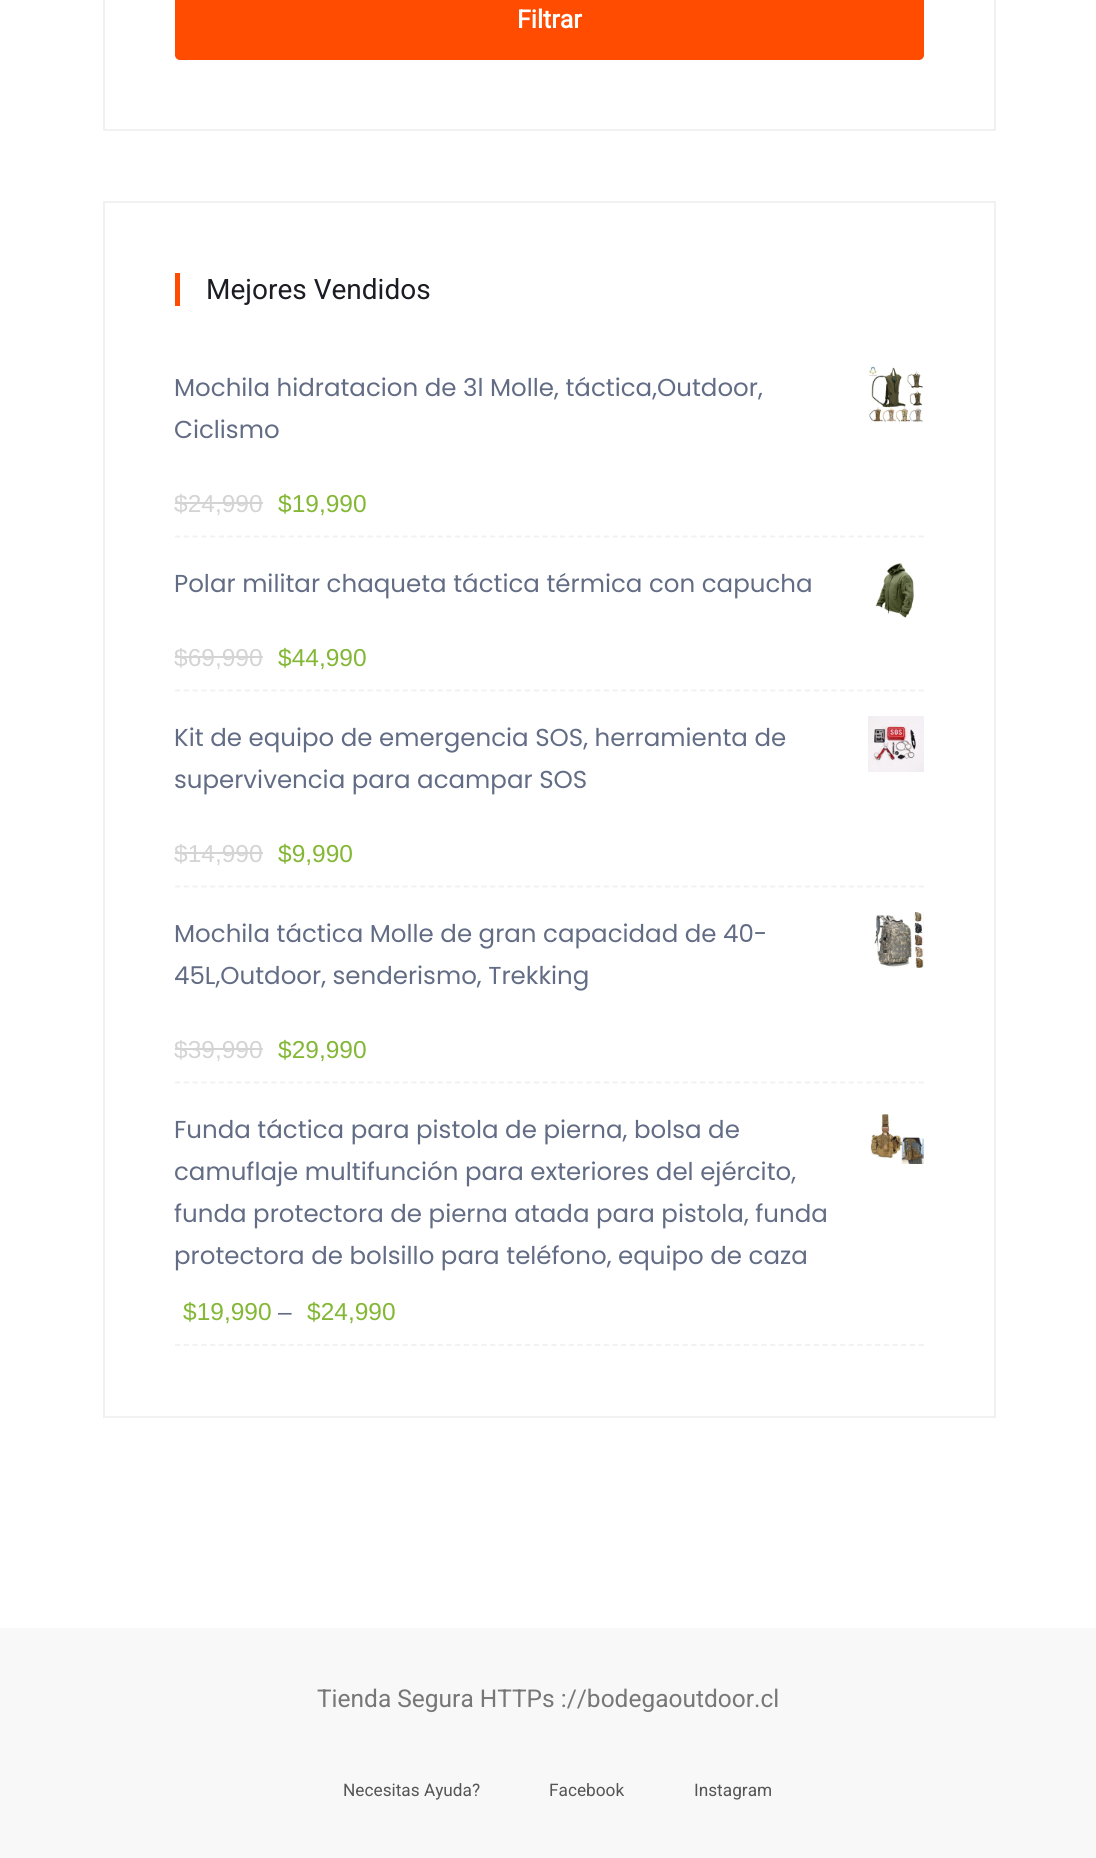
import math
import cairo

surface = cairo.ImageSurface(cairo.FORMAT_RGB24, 1096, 1858)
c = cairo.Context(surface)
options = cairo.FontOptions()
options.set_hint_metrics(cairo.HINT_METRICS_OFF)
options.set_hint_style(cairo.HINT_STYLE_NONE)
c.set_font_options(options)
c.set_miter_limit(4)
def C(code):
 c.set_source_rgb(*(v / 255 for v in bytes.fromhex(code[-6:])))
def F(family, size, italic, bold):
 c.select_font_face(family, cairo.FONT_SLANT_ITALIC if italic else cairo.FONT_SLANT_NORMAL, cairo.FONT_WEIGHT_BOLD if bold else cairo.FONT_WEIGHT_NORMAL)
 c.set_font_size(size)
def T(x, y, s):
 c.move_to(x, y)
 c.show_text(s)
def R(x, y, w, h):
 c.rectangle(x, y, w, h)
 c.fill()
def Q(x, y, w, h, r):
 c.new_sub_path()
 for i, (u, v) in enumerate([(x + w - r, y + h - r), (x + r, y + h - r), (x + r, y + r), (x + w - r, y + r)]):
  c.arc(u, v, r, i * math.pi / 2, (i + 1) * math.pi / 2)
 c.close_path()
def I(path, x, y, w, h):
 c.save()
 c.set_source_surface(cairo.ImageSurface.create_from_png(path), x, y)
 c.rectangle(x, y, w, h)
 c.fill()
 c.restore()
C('ffffff')
c.paint()
c.rectangle(104,-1,891,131)
C('f1f1f1')
c.stroke()
C('ff4c00')
Q(175,-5,749,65,5)
c.fill()
F('Roboto',25,0,1)
C('ffffff')
T(517,28,'Filtrar')
c.rectangle(104,202,891,1215)
C('f1f1f1')
c.stroke()
C('ff4c00')
R(175,273,5,33)
F('Roboto',28,0,0)
C('1c1c24')
T(206,299,'Mejores Vendidos')
c.new_path()
c.move_to(175,536.5)
c.line_to(924,536.5)
C('f1f1f1')
c.set_line_width(1.8)
c.set_dash([5.25,3.5])
c.stroke()
F('Poppins',24.5,0,0)
C('626c84')
T(174,396,'Mochila hidratacion de 3l Molle, táctica,Outdoor,')
T(174,438,'Ciclismo')
I('1.png',868,366,56,56)
F('Liberation Sans',24.5,0,0)
C('d4d4d4')
T(174,512,'$24,990')
R(175,502,88,2)
C('83b735')
T(278,512,'$19,990')
c.new_path()
c.move_to(175,690.5)
c.line_to(924,690.5)
C('f1f1f1')
c.stroke()
F('Poppins',24.5,0,0)
C('626c84')
T(174,592,'Polar militar chaqueta táctica térmica con capucha')
I('2.png',875,563,39,55)
F('Liberation Sans',24.5,0,0)
C('d4d4d4')
T(174,666,'$69,990')
R(175,656,88,2)
C('83b735')
T(278,666,'$44,990')
c.new_path()
c.move_to(175,886.5)
c.line_to(924,886.5)
C('f1f1f1')
c.stroke()
F('Poppins',24.5,0,0)
C('626c84')
T(174,746,'Kit de equipo de emergencia SOS, herramienta de')
T(174,788,'supervivencia para acampar SOS')
I('3.png',868,716,56,56)
F('Liberation Sans',24.5,0,0)
C('d4d4d4')
T(174,862,'$14,990')
R(175,852,88,2)
C('83b735')
T(278,862,'$9,990')
c.new_path()
c.move_to(175,1082.5)
c.line_to(924,1082.5)
C('f1f1f1')
c.stroke()
F('Poppins',24.5,0,0)
C('626c84')
T(174,942,'Mochila táctica Molle de gran capacidad de 40-')
T(174,984,'45L,Outdoor, senderismo, Trekking')
I('4.png',874,912,50,56)
F('Liberation Sans',24.5,0,0)
C('d4d4d4')
T(174,1058,'$39,990')
R(175,1048,88,2)
C('83b735')
T(278,1058,'$29,990')
c.new_path()
c.move_to(175,1345)
c.line_to(924,1345)
C('f1f1f1')
c.stroke()
F('Poppins',24.5,0,0)
C('626c84')
T(174,1138,'Funda táctica para pistola de pierna, bolsa de')
T(174,1180,'camuflaje multifunción para exteriores del ejército,')
T(174,1222,'funda protectora de pierna atada para pistola, funda')
T(174,1264,'protectora de bolsillo para teléfono, equipo de caza')
I('5.png',870,1114,54,50)
F('Liberation Sans',24.5,0,0)
C('83b735')
T(183,1320,'$19,990')
C('626c84')
T(278,1320,'–')
C('83b735')
T(307,1320,'$24,990')
C('f8f8f8')
R(0,1628,1096,230)
F('Roboto',24.5,0,0)
C('777777')
T(317,1707,'Tienda Segura HTTPs ://bodegaoutdoor.cl')
F('Roboto',17.25,0,0)
C('555555')
T(343,1796,'Necesitas Ayuda?')
T(549,1796,'Facebook')
T(694,1796,'Instagram')
surface.write_to_png('o.png')
